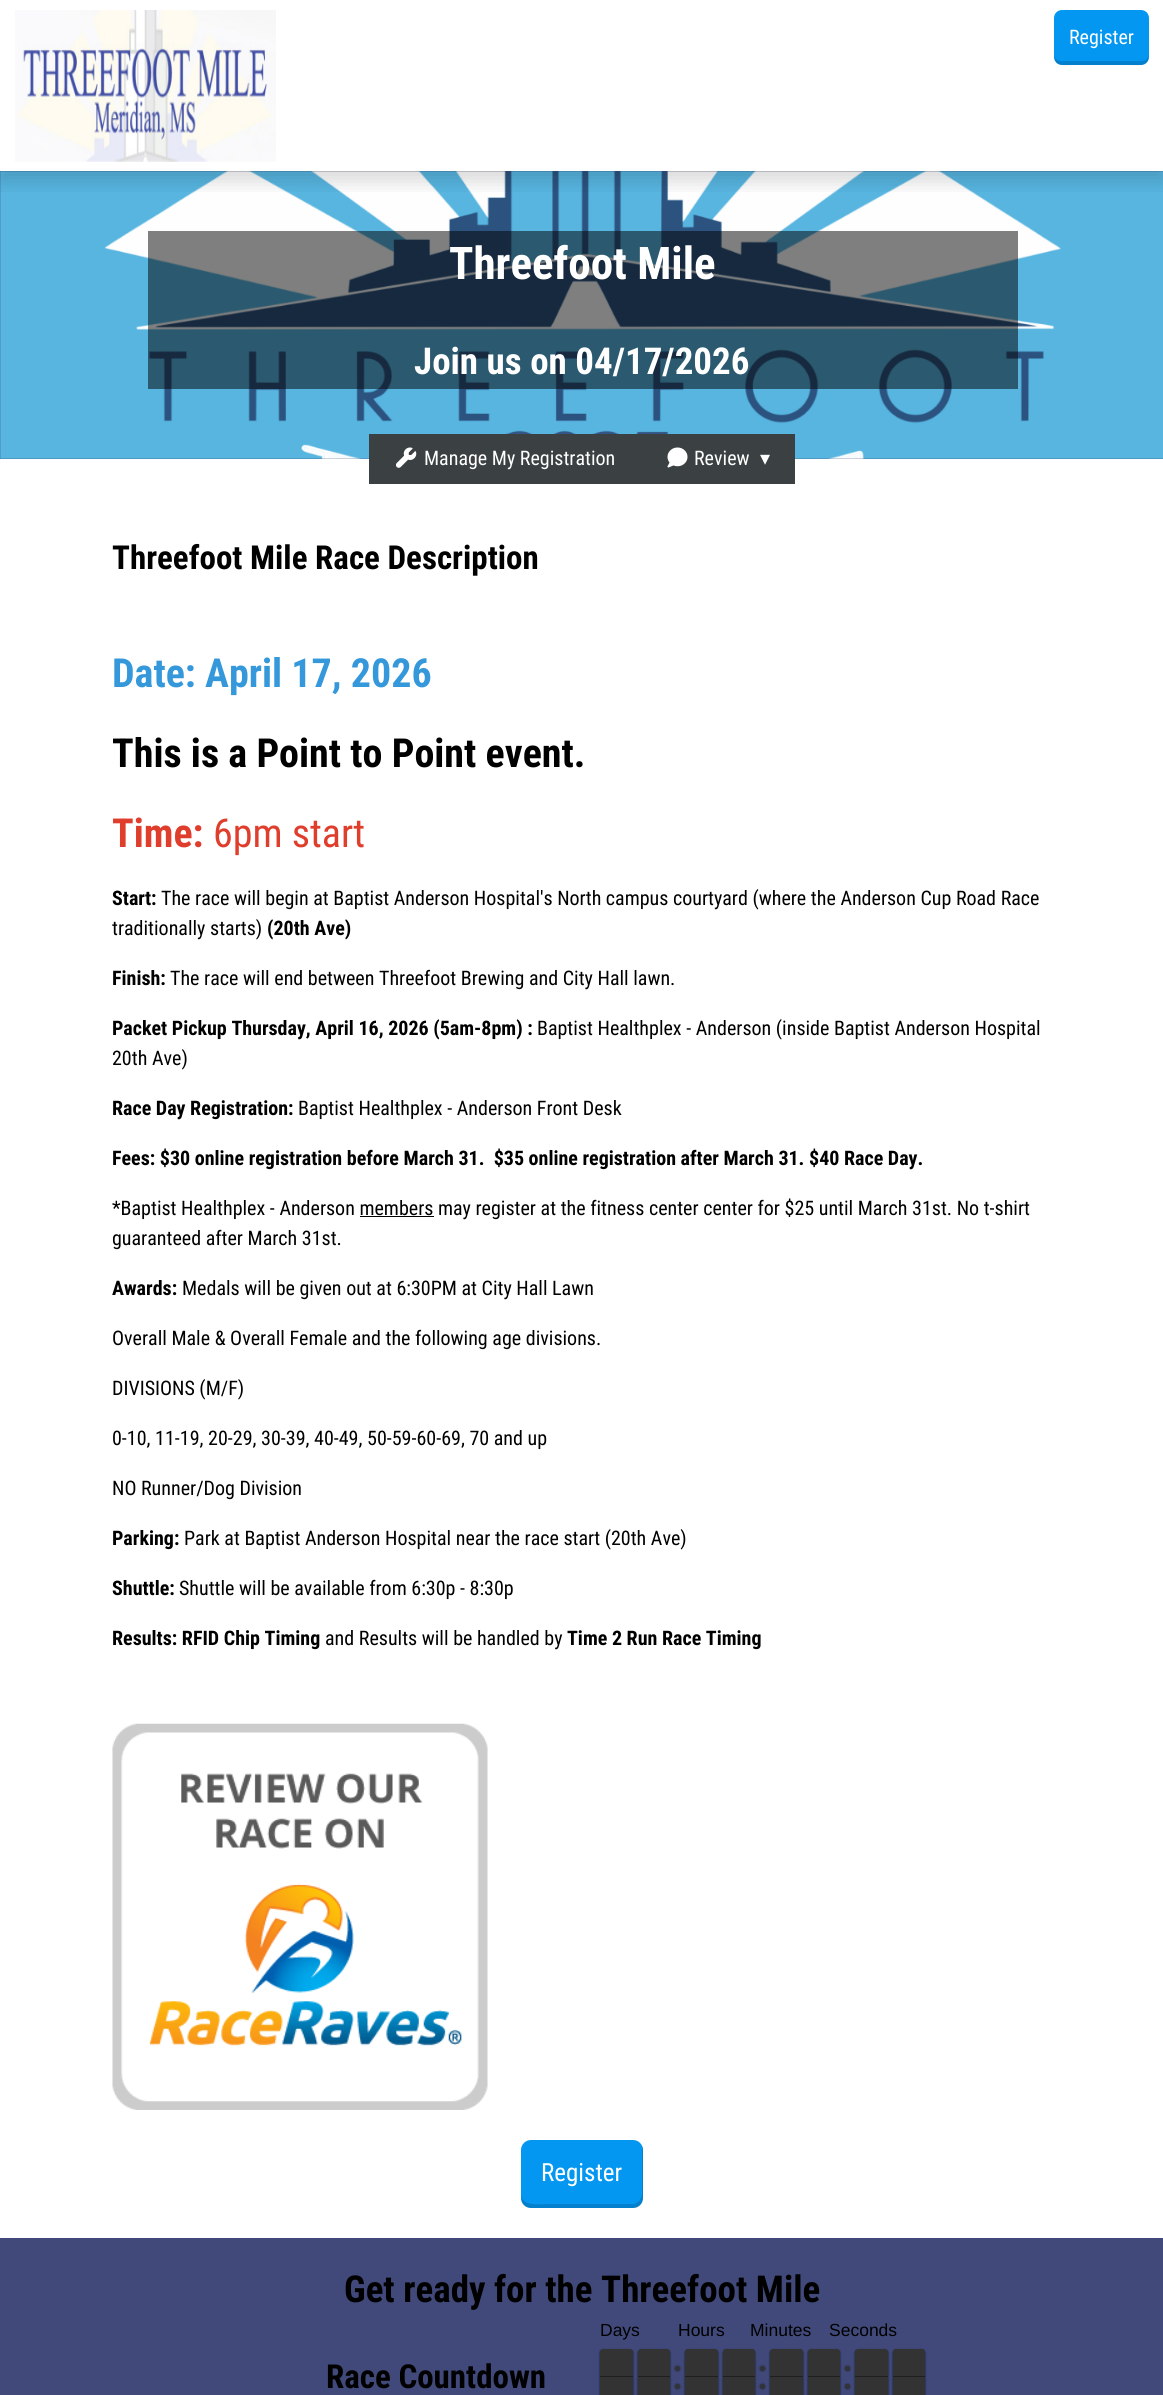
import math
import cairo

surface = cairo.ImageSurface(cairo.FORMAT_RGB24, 1163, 2395)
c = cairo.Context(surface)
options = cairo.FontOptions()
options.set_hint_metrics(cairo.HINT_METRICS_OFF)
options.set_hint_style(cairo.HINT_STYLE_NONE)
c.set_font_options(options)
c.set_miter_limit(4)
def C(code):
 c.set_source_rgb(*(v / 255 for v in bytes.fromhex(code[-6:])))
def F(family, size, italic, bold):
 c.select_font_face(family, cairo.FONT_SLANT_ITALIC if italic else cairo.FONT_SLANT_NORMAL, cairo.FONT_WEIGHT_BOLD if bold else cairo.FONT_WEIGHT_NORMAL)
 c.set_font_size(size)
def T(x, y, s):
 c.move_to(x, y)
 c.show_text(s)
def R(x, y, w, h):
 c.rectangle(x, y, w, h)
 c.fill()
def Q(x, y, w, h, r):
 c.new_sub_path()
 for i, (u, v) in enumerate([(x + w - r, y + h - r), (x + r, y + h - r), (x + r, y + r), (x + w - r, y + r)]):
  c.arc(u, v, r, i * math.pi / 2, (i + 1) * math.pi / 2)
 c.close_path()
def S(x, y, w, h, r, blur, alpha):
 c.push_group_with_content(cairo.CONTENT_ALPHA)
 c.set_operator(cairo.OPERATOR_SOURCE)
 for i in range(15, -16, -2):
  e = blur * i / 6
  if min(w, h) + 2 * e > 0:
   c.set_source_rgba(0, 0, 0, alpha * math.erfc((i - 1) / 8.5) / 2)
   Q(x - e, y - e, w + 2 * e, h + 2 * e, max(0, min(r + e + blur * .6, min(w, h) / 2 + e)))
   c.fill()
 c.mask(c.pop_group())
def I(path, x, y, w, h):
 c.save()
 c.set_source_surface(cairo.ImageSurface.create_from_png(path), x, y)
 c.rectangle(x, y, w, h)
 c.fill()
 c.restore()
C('ffffff')
c.paint()
C('40497a')
R(0,171,1163,288)
I('2.png',0,171,1163,288)
c.save()
c.rectangle(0,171,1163,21)
c.clip()
C('000000')
S(0,10,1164,171,0,10,.15)
c.restore()
I('1.png',15,10,261,152)
C('0497f1')
Q(1054,10,95,55,8)
c.fill()
c.set_source_rgba(0,0,0,0.15)
c.new_path()
c.move_to(1054,54)
c.curve_to(1054,68,1063,65,1075,65)
c.line_to(1128,65)
c.curve_to(1140,65,1149,68,1149,54)
c.curve_to(1149,58,1145,61,1141,61)
c.line_to(1061,61)
c.curve_to(1057,61,1054,58,1054,54)
c.close_path()
c.fill()
F('Roboto Condensed',20,0,0)
C('ffffff')
T(1069,44,'Register')
c.set_source_rgba(0,0,0,0.5)
R(148,231,870,158)
F('Roboto Condensed',45,0,1)
C('ffffff')
T(449,279,'Threefoot Mile')
F('Roboto Condensed',37,0,1)
T(414,374,'Join us on 04/17/2026')
C('3b4142')
R(369,434,426,50)
I('3.png',396,447,21,21)
F('Roboto Condensed',20,0,0)
C('ffffff')
T(424,465,'Manage My Registration')
I('4.png',667,447,21,21)
T(694,465,'Review')
F('DejaVu Sans',20,0,0)
T(760,465,'▾')
F('Roboto Condensed',33,0,1)
C('000000')
T(112,569,'Threefoot Mile Race Description')
F('Roboto Condensed',40,0,1)
C('3598db')
T(112,687,'Date: April 17, 2026')
C('000000')
T(112,767,'This is a Point to Point event.')
C('e03e2d')
T(112,847,'Time:')
F('Roboto Condensed',40,0,0)
T(213,847,'6pm start')
F('Roboto Condensed',20,0,1)
C('000000')
T(112,905,'Start:')
F('Roboto Condensed',20,0,0)
T(161,905,'The race will begin at Baptist Anderson Hospital\'s North campus courtyard (where the Anderson Cup Road Race')
T(112,935,'traditionally starts)')
F('Roboto Condensed',20,0,1)
T(267,935,'(20th Ave)')
T(112,985,'Finish:')
F('Roboto Condensed',20,0,0)
T(170,985,'The race will end between Threefoot Brewing and City Hall lawn.')
F('Roboto Condensed',20,0,1)
T(112,1035,'Packet Pickup Thursday, April 16, 2026 (5am-8pm) :')
F('Roboto Condensed',20,0,0)
T(537,1035,'Baptist Healthplex - Anderson (inside Baptist Anderson Hospital')
T(112,1065,'20th Ave)')
F('Roboto Condensed',20,0,1)
T(112,1115,'Race Day Registration:')
F('Roboto Condensed',20,0,0)
T(298,1115,'Baptist Healthplex - Anderson Front Desk')
F('Roboto Condensed',20,0,1)
T(112,1165,'Fees: $30 online registration before March 31.  $35 online registration after March 31. $40 Race Day.')
F('Roboto Condensed',20,0,0)
T(112,1215,'*Baptist Healthplex - Anderson members may register at the fitness center center for $25 until March 31st. No t-shirt')
R(360,1216,74,1)
T(112,1245,'guaranteed after March 31st.')
F('Roboto Condensed',20,0,1)
T(112,1295,'Awards:')
F('Roboto Condensed',20,0,0)
T(182,1295,'Medals will be given out at 6:30PM at City Hall Lawn')
T(112,1345,'Overall Male & Overall Female and the following age divisions.')
T(112,1395,'DIVISIONS (M/F)')
T(112,1445,'0-10, 11-19, 20-29, 30-39, 40-49, 50-59-60-69, 70 and up')
T(112,1495,'NO Runner/Dog Division')
F('Roboto Condensed',20,0,1)
T(112,1545,'Parking:')
F('Roboto Condensed',20,0,0)
T(184,1545,'Park at Baptist Anderson Hospital near the race start (20th Ave)')
F('Roboto Condensed',20,0,1)
T(112,1595,'Shuttle:')
F('Roboto Condensed',20,0,0)
T(179,1595,'Shuttle will be available from 6:30p - 8:30p')
F('Roboto Condensed',20,0,1)
T(112,1645,'Results: RFID Chip Timing')
F('Roboto Condensed',20,0,0)
T(325,1645,'and Results will be handled by')
F('Roboto Condensed',20,0,1)
T(567,1645,'Time 2 Run Race Timing')
I('5.png',112,1723,376,387)
C('0497f1')
Q(521,2140,122,68,10)
c.fill()
c.set_source_rgba(0,0,0,0.15)
c.new_path()
c.move_to(521,2194)
c.line_to(521,2198)
c.curve_to(521,2204,525,2208,531,2208)
c.line_to(633,2208)
c.curve_to(639,2208,643,2204,643,2198)
c.line_to(643,2150)
c.curve_to(643,2148,643,2147,642,2146)
c.line_to(642,2196)
c.line_to(639,2201)
c.curve_to(638,2202,636,2203,634,2204)
c.line_to(548,2204)
c.curve_to(541,2204,521,2207,521,2194)
c.close_path()
c.fill()
F('Roboto Condensed',25,0,0)
C('ffffff')
T(541,2181,'Register')
C('40497a')
R(0,2238,1163,157)
F('Roboto Condensed',37,0,1)
C('000000')
T(344,2302,'Get ready for the Threefoot Mile')
F('Liberation Sans',17.5,0,0)
T(600,2336,'Days')
T(678,2336,'Hours')
C('000000')
S(675,2366,5,5,2.5,1,.5)
C('323434')
c.arc(677.5,2368.5,2.5,0,2 * math.pi)
c.fill()
C('000000')
S(675,2384,5,5,2.5,1,.5)
C('323434')
c.arc(677.5,2386.5,2.5,0,2 * math.pi)
c.fill()
C('000000')
T(750,2336,'Minutes')
C('000000')
S(760,2366,5,5,2.5,1,.5)
C('323434')
c.arc(762.5,2368.5,2.5,0,2 * math.pi)
c.fill()
C('000000')
S(760,2384,5,5,2.5,1,.5)
C('323434')
c.arc(762.5,2386.5,2.5,0,2 * math.pi)
c.fill()
C('000000')
T(829,2336,'Seconds')
C('000000')
S(845,2366,5,5,2.5,1,.5)
C('323434')
c.arc(847.5,2368.5,2.5,0,2 * math.pi)
c.fill()
C('000000')
S(845,2384,5,5,2.5,1,.5)
C('323434')
c.arc(847.5,2386.5,2.5,0,2 * math.pi)
c.fill()
C('000000')
S(600,2350,33,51,3,1,.7)
C('333333')
c.new_path()
c.move_to(603,2349)
c.line_to(630,2349)
c.curve_to(631.5,2349,633,2350.5,633,2352)
c.line_to(633,2379)
c.line_to(600,2379)
c.line_to(600,2352)
c.curve_to(600,2350.5,601.5,2349,603,2349)
c.close_path()
c.fill()
c.set_source_rgba(0,0,0,0.4)
R(600,2376,33,1)
C('333333')
R(600,2379,33,16)
C('000000')
S(638,2350,32,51,3,1,.7)
C('333333')
c.new_path()
c.move_to(641,2349)
c.line_to(667,2349)
c.curve_to(668.5,2349,670,2350.5,670,2352)
c.line_to(670,2379)
c.line_to(638,2379)
c.line_to(638,2352)
c.curve_to(638,2350.5,639.5,2349,641,2349)
c.close_path()
c.fill()
c.set_source_rgba(0,0,0,0.4)
R(638,2376,32,1)
C('333333')
R(638,2379,32,16)
C('000000')
S(685,2350,33,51,3,1,.7)
C('333333')
c.new_path()
c.move_to(688,2349)
c.line_to(715,2349)
c.curve_to(716.5,2349,718,2350.5,718,2352)
c.line_to(718,2379)
c.line_to(685,2379)
c.line_to(685,2352)
c.curve_to(685,2350.5,686.5,2349,688,2349)
c.close_path()
c.fill()
c.set_source_rgba(0,0,0,0.4)
R(685,2376,33,1)
C('333333')
R(685,2379,33,16)
C('000000')
S(723,2350,32,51,3,1,.7)
C('333333')
c.new_path()
c.move_to(726,2349)
c.line_to(752,2349)
c.curve_to(753.5,2349,755,2350.5,755,2352)
c.line_to(755,2379)
c.line_to(723,2379)
c.line_to(723,2352)
c.curve_to(723,2350.5,724.5,2349,726,2349)
c.close_path()
c.fill()
c.set_source_rgba(0,0,0,0.4)
R(723,2376,32,1)
C('333333')
R(723,2379,32,16)
C('000000')
S(770,2350,33,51,3,1,.7)
C('333333')
c.new_path()
c.move_to(773,2349)
c.line_to(800,2349)
c.curve_to(801.5,2349,803,2350.5,803,2352)
c.line_to(803,2379)
c.line_to(770,2379)
c.line_to(770,2352)
c.curve_to(770,2350.5,771.5,2349,773,2349)
c.close_path()
c.fill()
c.set_source_rgba(0,0,0,0.4)
R(770,2376,33,1)
C('333333')
R(770,2379,33,16)
C('000000')
S(808,2350,32,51,3,1,.7)
C('333333')
c.new_path()
c.move_to(811,2349)
c.line_to(837,2349)
c.curve_to(838.5,2349,840,2350.5,840,2352)
c.line_to(840,2379)
c.line_to(808,2379)
c.line_to(808,2352)
c.curve_to(808,2350.5,809.5,2349,811,2349)
c.close_path()
c.fill()
c.set_source_rgba(0,0,0,0.4)
R(808,2376,32,1)
C('333333')
R(808,2379,32,16)
C('000000')
S(855,2350,33,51,3,1,.7)
C('333333')
c.new_path()
c.move_to(858,2349)
c.line_to(885,2349)
c.curve_to(886.5,2349,888,2350.5,888,2352)
c.line_to(888,2379)
c.line_to(855,2379)
c.line_to(855,2352)
c.curve_to(855,2350.5,856.5,2349,858,2349)
c.close_path()
c.fill()
c.set_source_rgba(0,0,0,0.4)
R(855,2376,33,1)
C('333333')
R(855,2379,33,16)
C('000000')
S(893,2350,32,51,3,1,.7)
C('333333')
c.new_path()
c.move_to(896,2349)
c.line_to(922,2349)
c.curve_to(923.5,2349,925,2350.5,925,2352)
c.line_to(925,2379)
c.line_to(893,2379)
c.line_to(893,2352)
c.curve_to(893,2350.5,894.5,2349,896,2349)
c.close_path()
c.fill()
c.set_source_rgba(0,0,0,0.4)
R(893,2376,32,1)
C('333333')
R(893,2379,32,16)
F('Roboto Condensed',33,0,1)
C('000000')
T(326,2388,'Race Countdown')
surface.write_to_png('o.png')
